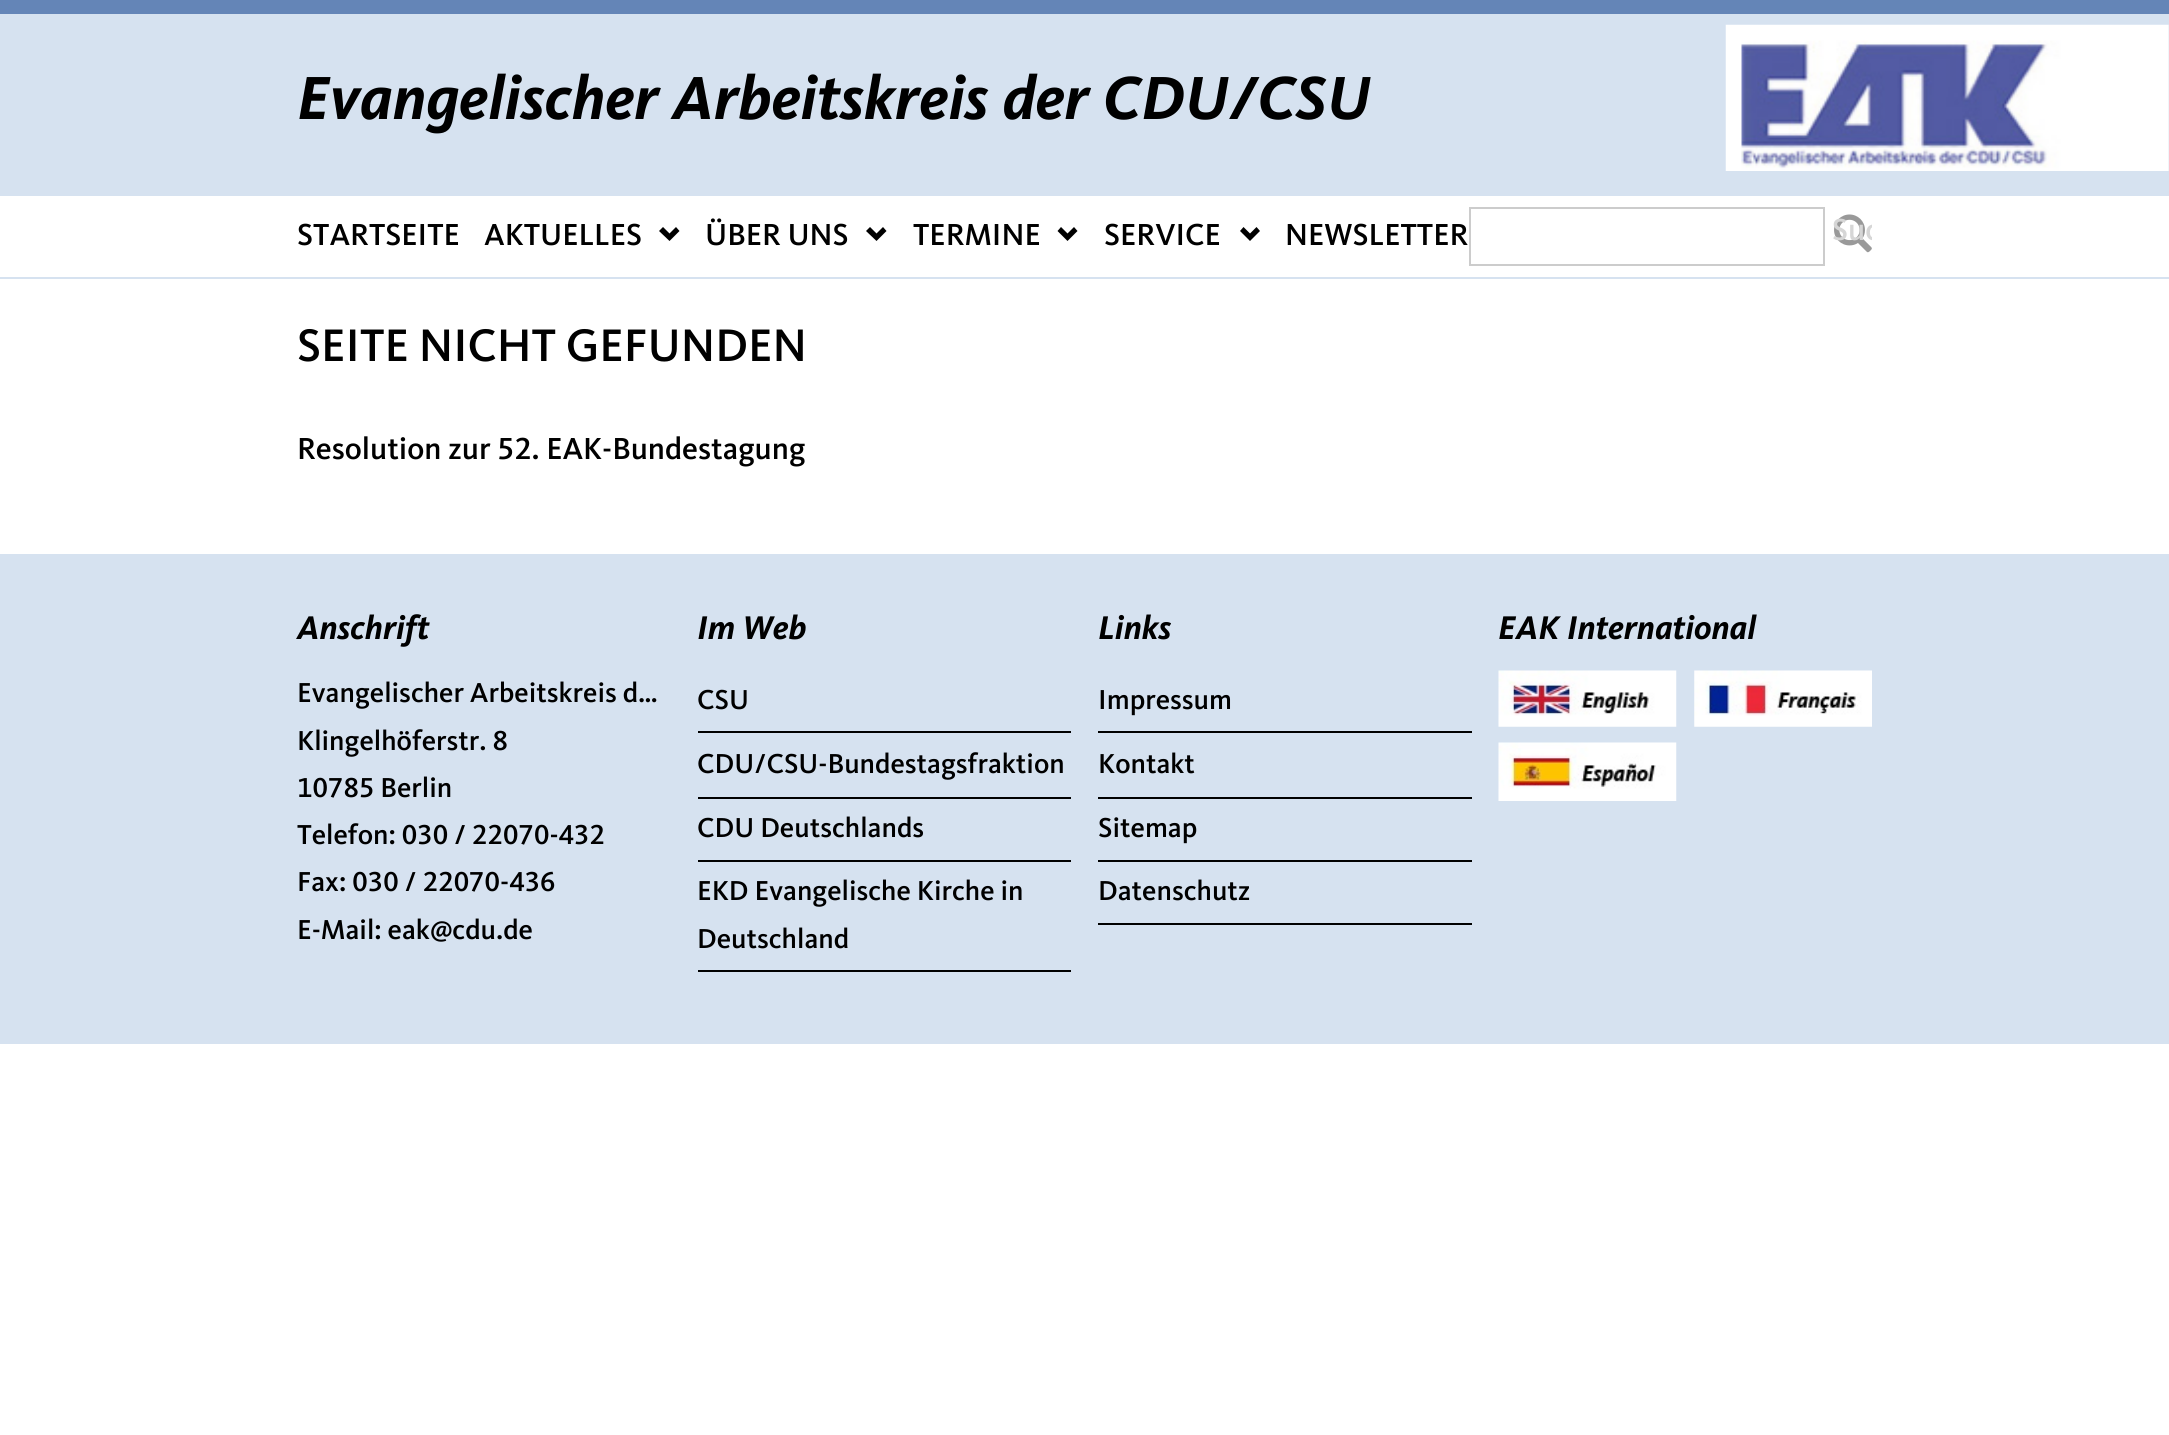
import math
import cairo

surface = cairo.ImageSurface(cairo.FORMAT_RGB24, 2169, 1435)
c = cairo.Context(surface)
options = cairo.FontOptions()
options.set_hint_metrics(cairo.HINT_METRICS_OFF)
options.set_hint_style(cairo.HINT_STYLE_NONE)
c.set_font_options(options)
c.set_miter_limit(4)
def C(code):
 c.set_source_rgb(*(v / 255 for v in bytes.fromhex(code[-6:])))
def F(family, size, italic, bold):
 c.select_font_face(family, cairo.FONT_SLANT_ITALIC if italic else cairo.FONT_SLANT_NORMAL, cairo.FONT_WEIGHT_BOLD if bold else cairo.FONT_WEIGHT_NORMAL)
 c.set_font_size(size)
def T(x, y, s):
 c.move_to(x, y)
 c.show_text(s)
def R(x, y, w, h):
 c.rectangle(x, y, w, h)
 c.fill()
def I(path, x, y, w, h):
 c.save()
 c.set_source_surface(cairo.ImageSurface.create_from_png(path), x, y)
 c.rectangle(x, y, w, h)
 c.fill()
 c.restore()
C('ffffff')
c.paint()
C('d6e2f0')
R(0,14,2169,182)
C('6485b7')
R(0,0,2169,14)
F('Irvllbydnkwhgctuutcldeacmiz',63,0,1)
C('000000')
T(297,119,'Evangelischer Arbeitskreis der CDU/CSU')
I('1.png',1725,24,444,147)
C('d6e2f0')
R(0,277,2169,2)
F('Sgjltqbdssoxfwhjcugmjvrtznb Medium',31.5,0,0)
C('000000')
T(297,245,'STARTSEITE')
T(484,245,'AKTUELLES')
c.new_path()
c.move_to(679.5,231)
c.line_to(669.5,241)
c.line_to(659,231)
c.line_to(663,227)
c.line_to(669.5,233.5)
c.line_to(676,227)
c.close_path()
c.fill()
T(705,245,'ÜBER UNS')
c.new_path()
c.move_to(886.5,231)
c.line_to(876.5,241)
c.line_to(866,231)
c.line_to(870,227)
c.line_to(876.5,233.5)
c.line_to(883,227)
c.close_path()
c.fill()
T(913,245,'TERMINE')
c.new_path()
c.move_to(1077.5,231)
c.line_to(1067.5,241)
c.line_to(1057.5,231)
c.line_to(1061,227)
c.line_to(1067.5,233.5)
c.line_to(1074,227)
c.close_path()
c.fill()
T(1104,245,'SERVICE')
c.new_path()
c.move_to(1260,231)
c.line_to(1250,241)
c.line_to(1240,231)
c.line_to(1243.5,227)
c.line_to(1250,233.5)
c.line_to(1256.5,227)
c.close_path()
c.fill()
T(1285,245,'NEWSLETTER')
c.rectangle(1470,208,354,57)
C('cccccc')
c.stroke()
I('2.png',1834,214,38,39)
c.save()
c.rectangle(1832,207,40,50)
c.clip()
C('d6d6d6')
T(1832,240,'Suc')
c.restore()
F('Sgjltqbdssoxfwhjcugmjvrtznb Medium',47.25,0,0)
C('000000')
T(297,361,'SEITE NICHT GEFUNDEN')
F('Sgjltqbdssoxfwhjcugmjvrtznb Medium',31.5,0,0)
T(297,459,'Resolution zur 52. EAK-Bundestagung')
C('d6e2f0')
R(0,554,2169,490)
F('Irvllbydnkwhgctuutcldeacmiz',34,0,1)
C('000000')
T(297,639,'Anschrift')
F('Sgjltqbdssoxfwhjcugmjvrtznb Medium',28.4,0,0)
T(297,702,'Evangelischer Arbeitskreis d…')
T(297,750,'Klingelhöferstr. 8')
T(297,797,'10785 Berlin')
T(297,844,'Telefon: 030 / 22070-432')
T(297,891,'Fax: 030 / 22070-436')
T(297,939,'E-Mail: eak@cdu.de')
F('Irvllbydnkwhgctuutcldeacmiz',34,0,1)
T(697,639,'Im Web')
C('010101')
R(698,731,373,2)
F('Sgjltqbdssoxfwhjcugmjvrtznb Medium',28.4,0,0)
C('000000')
T(697,709,'CSU')
C('010101')
R(698,797,373,2)
C('000000')
T(697,773,'CDU/CSU-Bundestagsfraktion')
C('010101')
R(698,860,373,2)
C('000000')
T(697,837,'CDU Deutschlands')
C('010101')
R(698,970,373,2)
C('000000')
T(697,900,'EKD Evangelische Kirche in')
T(697,948,'Deutschland')
F('Irvllbydnkwhgctuutcldeacmiz',34,0,1)
T(1098,639,'Links')
C('010101')
R(1098,731,374,2)
F('Sgjltqbdssoxfwhjcugmjvrtznb Medium',28.4,0,0)
C('000000')
T(1098,709,'Impressum')
C('010101')
R(1098,797,374,2)
C('000000')
T(1098,773,'Kontakt')
C('010101')
R(1098,860,374,2)
C('000000')
T(1098,837,'Sitemap')
C('010101')
R(1098,923,374,2)
C('000000')
T(1098,900,'Datenschutz')
F('Irvllbydnkwhgctuutcldeacmiz',34,0,1)
T(1498,639,'EAK International')
I('3.png',1498,670,179,57)
I('4.png',1694,670,178,57)
I('5.png',1498,742,179,59)
surface.write_to_png('o.png')
